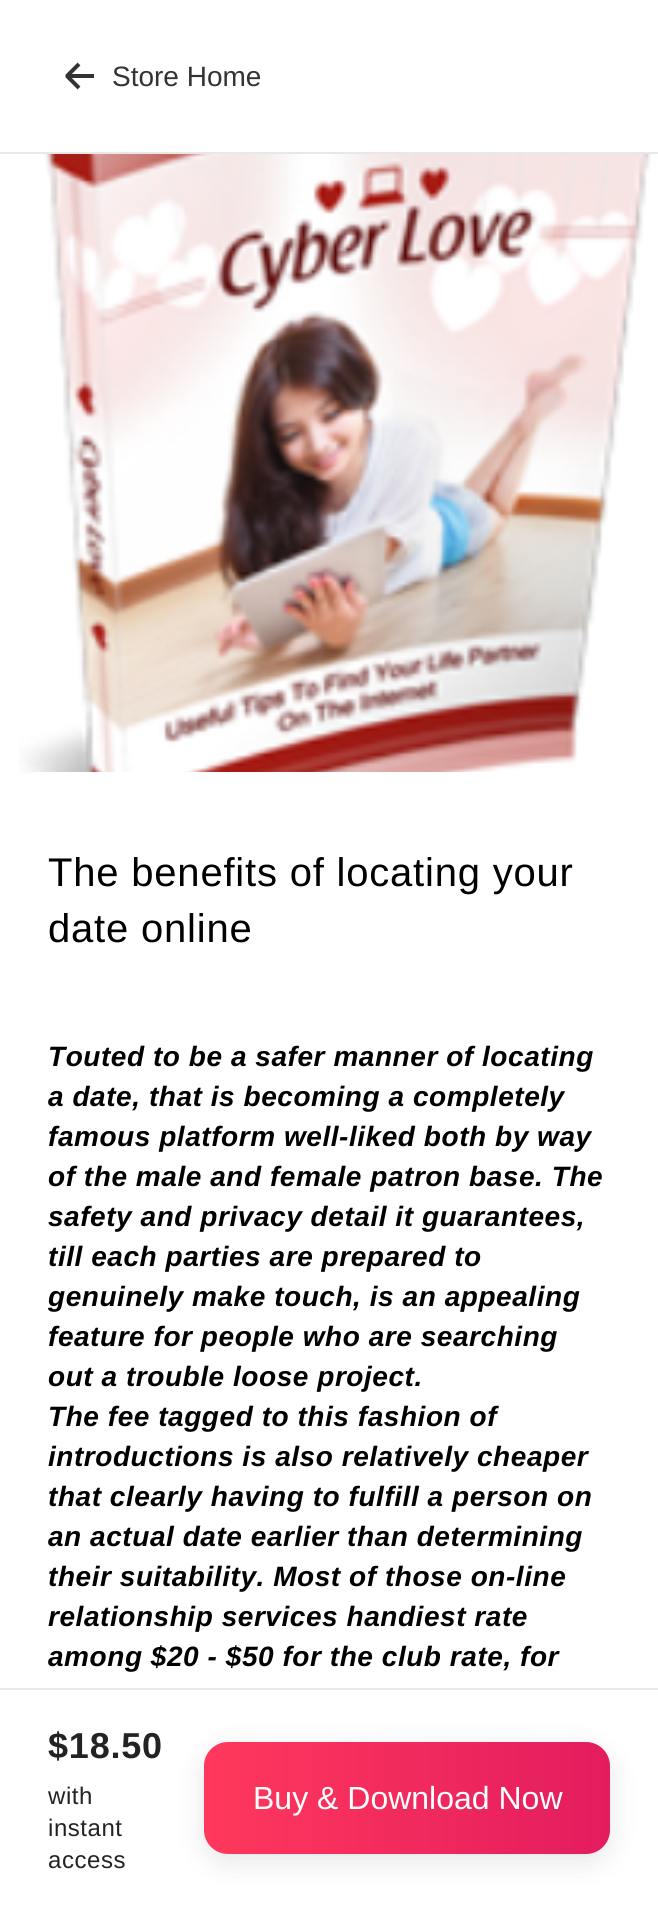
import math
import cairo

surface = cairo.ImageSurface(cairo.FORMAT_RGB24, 658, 1908)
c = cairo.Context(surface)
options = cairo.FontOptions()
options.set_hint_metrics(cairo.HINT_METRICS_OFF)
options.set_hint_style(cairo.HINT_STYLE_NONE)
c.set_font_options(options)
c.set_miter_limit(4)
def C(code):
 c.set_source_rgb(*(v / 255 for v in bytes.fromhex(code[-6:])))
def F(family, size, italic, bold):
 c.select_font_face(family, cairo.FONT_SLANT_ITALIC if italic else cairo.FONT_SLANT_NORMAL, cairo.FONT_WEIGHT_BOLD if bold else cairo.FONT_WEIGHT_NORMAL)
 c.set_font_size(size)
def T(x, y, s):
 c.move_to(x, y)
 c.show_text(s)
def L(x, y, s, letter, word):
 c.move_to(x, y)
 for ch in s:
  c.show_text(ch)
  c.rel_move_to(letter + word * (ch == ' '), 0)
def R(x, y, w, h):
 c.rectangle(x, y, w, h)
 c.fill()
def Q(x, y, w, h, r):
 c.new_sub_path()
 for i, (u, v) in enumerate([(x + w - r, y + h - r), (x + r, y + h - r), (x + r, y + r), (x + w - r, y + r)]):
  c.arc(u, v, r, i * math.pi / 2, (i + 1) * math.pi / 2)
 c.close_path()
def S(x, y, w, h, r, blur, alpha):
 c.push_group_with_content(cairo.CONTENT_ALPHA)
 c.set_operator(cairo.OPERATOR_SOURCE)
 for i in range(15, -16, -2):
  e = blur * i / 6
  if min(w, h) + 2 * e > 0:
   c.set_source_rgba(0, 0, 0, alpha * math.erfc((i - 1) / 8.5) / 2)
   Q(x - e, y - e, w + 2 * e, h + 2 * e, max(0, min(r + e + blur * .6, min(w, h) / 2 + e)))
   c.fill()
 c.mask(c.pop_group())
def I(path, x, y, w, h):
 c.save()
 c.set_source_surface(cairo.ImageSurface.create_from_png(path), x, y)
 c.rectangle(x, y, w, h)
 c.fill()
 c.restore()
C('ffffff')
c.paint()
C('e8e8e8')
R(0,152,658,2)
c.new_path()
c.move_to(68,76)
c.line_to(94,76)
c.move_to(79,88)
c.line_to(67.5,76.5)
c.curve_to(67.5,76.5,67.5,75.5,67.5,75.5)
c.line_to(79,64)
C('333333')
c.set_line_width(4)
c.stroke()
F('Liberation Sans',28,0,0)
T(112,86,'Store Home')
I('1.png',19,154,633,620)
C('ffffff')
c.new_path()
c.move_to(40,772)
c.line_to(618,772)
c.curve_to(640,772,658,790,658,812)
c.line_to(658,996)
c.line_to(0,996)
c.line_to(0,812)
c.curve_to(0,790,18,772,40,772)
c.close_path()
c.fill()
F('Liberation Sans',40,0,0)
C('000000')
L(48,886,'The benefits of locating your',.8,0)
L(48,942,'date online',.8,0)
F('Liberation Sans',28,1,1)
L(48,1066,'Touted to be a safer manner of locating',.55,0)
L(48,1106,'a date, that is becoming a completely',.55,0)
L(48,1146,'famous platform well-liked both by way',.55,0)
L(48,1186,'of the male and female patron base. The',.55,0)
L(48,1226,'safety and privacy detail it guarantees,',.55,0)
L(48,1266,'till each parties are prepared to',.55,0)
L(48,1306,'genuinely make touch, is an appealing',.55,0)
L(48,1346,'feature for people who are searching',.55,0)
L(48,1386,'out a trouble loose project.',.55,0)
L(48,1426,'The fee tagged to this fashion of',.55,0)
L(48,1466,'introductions is also relatively cheaper',.55,0)
L(48,1506,'that clearly having to fulfill a person on',.55,0)
L(48,1546,'an actual date earlier than determining',.55,0)
L(48,1586,'their suitability. Most of those on-line',.55,0)
L(48,1626,'relationship services handiest rate',.55,0)
L(48,1666,'among $20 - $50 for the club rate, for',.55,0)
C('e5e7eb')
R(0,1688,658,2)
F('Liberation Sans',36,0,1)
C('232323')
L(48,1758,'$18.50',.8,0)
F('Liberation Sans',24,0,0)
L(48,1804,'with',.55,0)
L(48,1836,'instant',.55,0)
L(48,1868,'access',.55,0)
C('000000')
S(204,1750,406,112,24,14,.1)
gradient = cairo.LinearGradient(204,1798,610,1798)
gradient.add_color_stop_rgba(0,1,0.22,0.361,1)
gradient.add_color_stop_rgba(1,0.89,0.11,0.373,1)
c.set_source(gradient)
Q(204,1742,406,112,24)
c.fill()
F('Liberation Sans',32,0,0)
C('ffffff')
T(253,1809,'Buy & Download Now')
surface.write_to_png('o.png')
